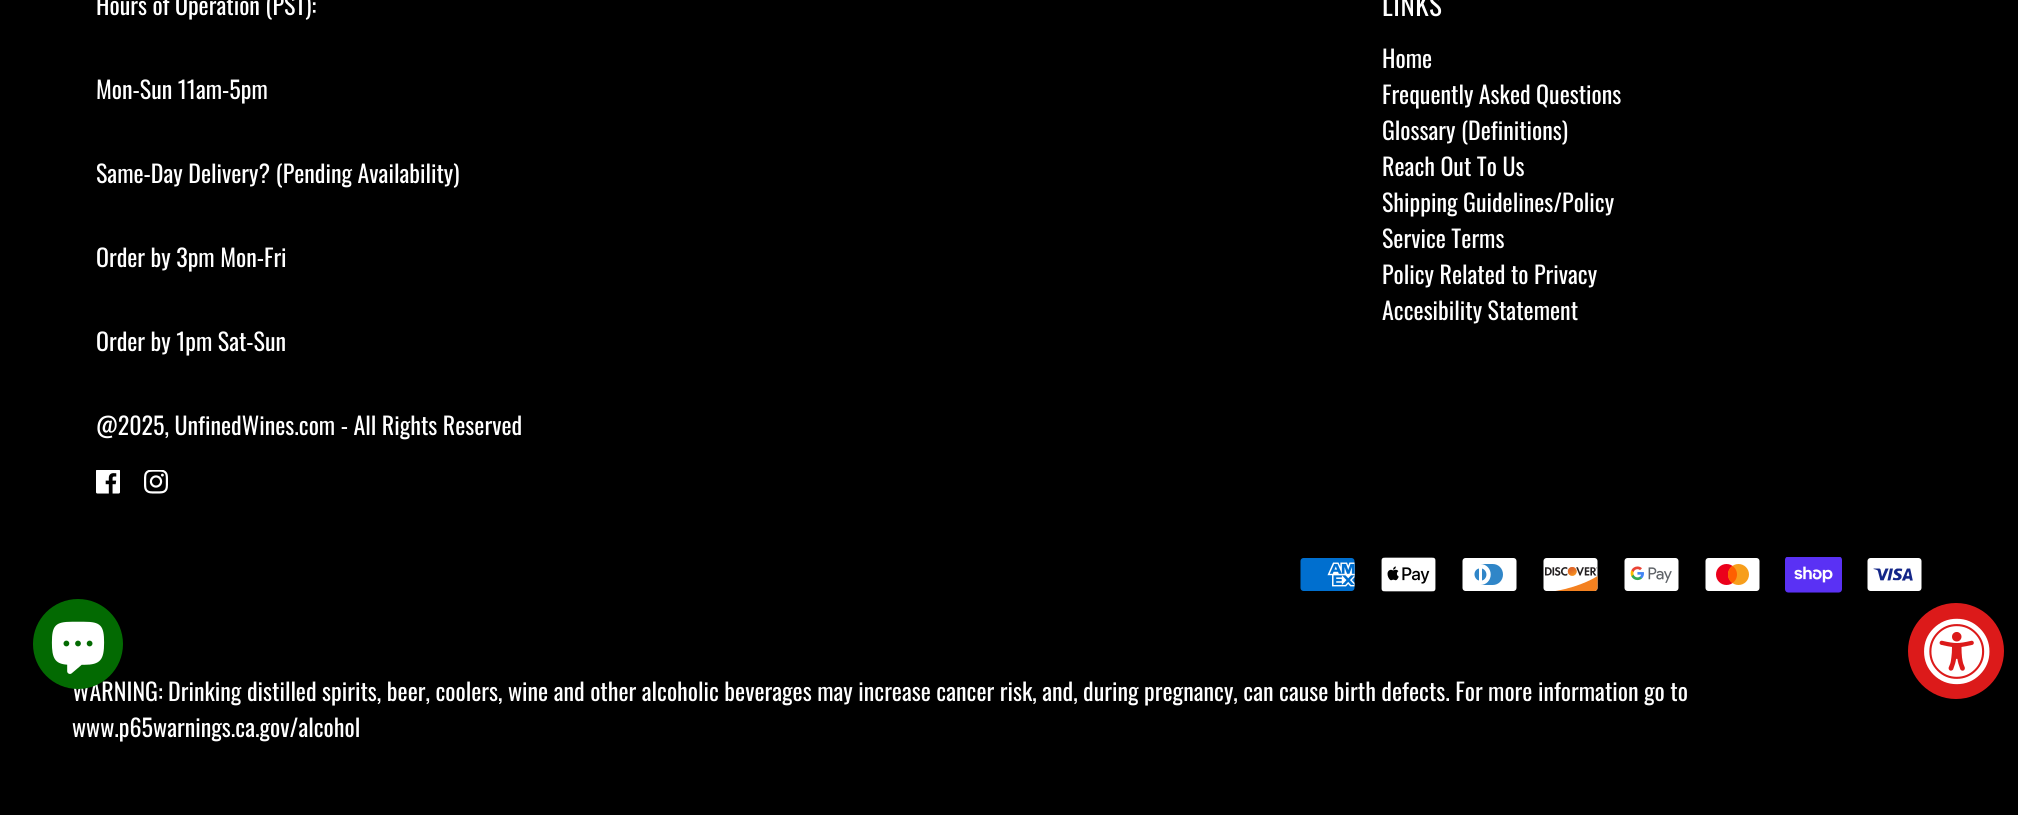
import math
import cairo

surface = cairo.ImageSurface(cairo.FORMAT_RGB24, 2018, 815)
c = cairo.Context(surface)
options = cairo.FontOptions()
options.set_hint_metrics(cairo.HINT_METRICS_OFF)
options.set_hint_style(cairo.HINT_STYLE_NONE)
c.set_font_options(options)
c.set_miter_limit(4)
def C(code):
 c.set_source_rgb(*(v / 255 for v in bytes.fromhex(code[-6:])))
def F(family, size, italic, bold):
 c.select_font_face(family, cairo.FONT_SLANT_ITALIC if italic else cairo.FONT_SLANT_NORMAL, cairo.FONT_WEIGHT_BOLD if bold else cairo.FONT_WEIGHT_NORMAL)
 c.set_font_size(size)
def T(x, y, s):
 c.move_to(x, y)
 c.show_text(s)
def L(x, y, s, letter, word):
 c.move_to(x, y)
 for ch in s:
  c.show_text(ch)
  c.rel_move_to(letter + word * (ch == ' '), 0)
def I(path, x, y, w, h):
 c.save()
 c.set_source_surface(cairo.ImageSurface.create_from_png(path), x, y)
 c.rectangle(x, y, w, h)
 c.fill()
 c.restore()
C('000000')
c.paint()
F('Oswald',24,0,0)
C('ffffff')
T(96,15,'Hours of Operation (PST):')
T(96,99,'Mon-Sun 11am-5pm')
T(96,183,'Same-Day Delivery? (Pending Availability)')
T(96,267,'Order by 3pm Mon-Fri')
T(96,351,'Order by 1pm Sat-Sun')
T(96,435,'@2025, UnfinedWines.com - All Rights Reserved')
I('1.png',96,470,24,24)
I('2.png',144,470,24,24)
F('Oswald',27,0,0)
L(1382,16,'LINKS',.5,0)
F('Oswald',24,0,0)
T(1382,68,'Home')
T(1382,104,'Frequently Asked Questions')
T(1382,140,'Glossary (Definitions)')
T(1382,176,'Reach Out To Us')
T(1382,212,'Shipping Guidelines/Policy')
T(1382,248,'Service Terms')
T(1382,284,'Policy Related to Privacy')
T(1382,320,'Accesibility Statement')
I('3.png',1300,558,55,33)
I('4.png',1381,557,55,35)
I('5.png',1462,558,55,33)
I('6.png',1543,558,55,33)
I('7.png',1624,558,55,33)
I('8.png',1705,558,55,33)
I('9.png',1785,557,57,36)
I('10.png',1867,558,55,33)
T(72,701,'WARNING: Drinking distilled spirits, beer, coolers, wine and other alcoholic beverages may increase cancer risk, and, during pregnancy, can cause birth defects. For more information go to')
T(72,737,'www.p65warnings.ca.gov/alcohol')
C('036a02')
c.new_path()
c.arc(78,644,45,0,2 * math.pi)
c.fill()
I('11.png',51,621,54,53)
C('dc1a1a')
c.arc(1956,651,48,0,2 * math.pi)
c.fill()
I('12.png',1924,618,66,67)
surface.write_to_png('o.png')
